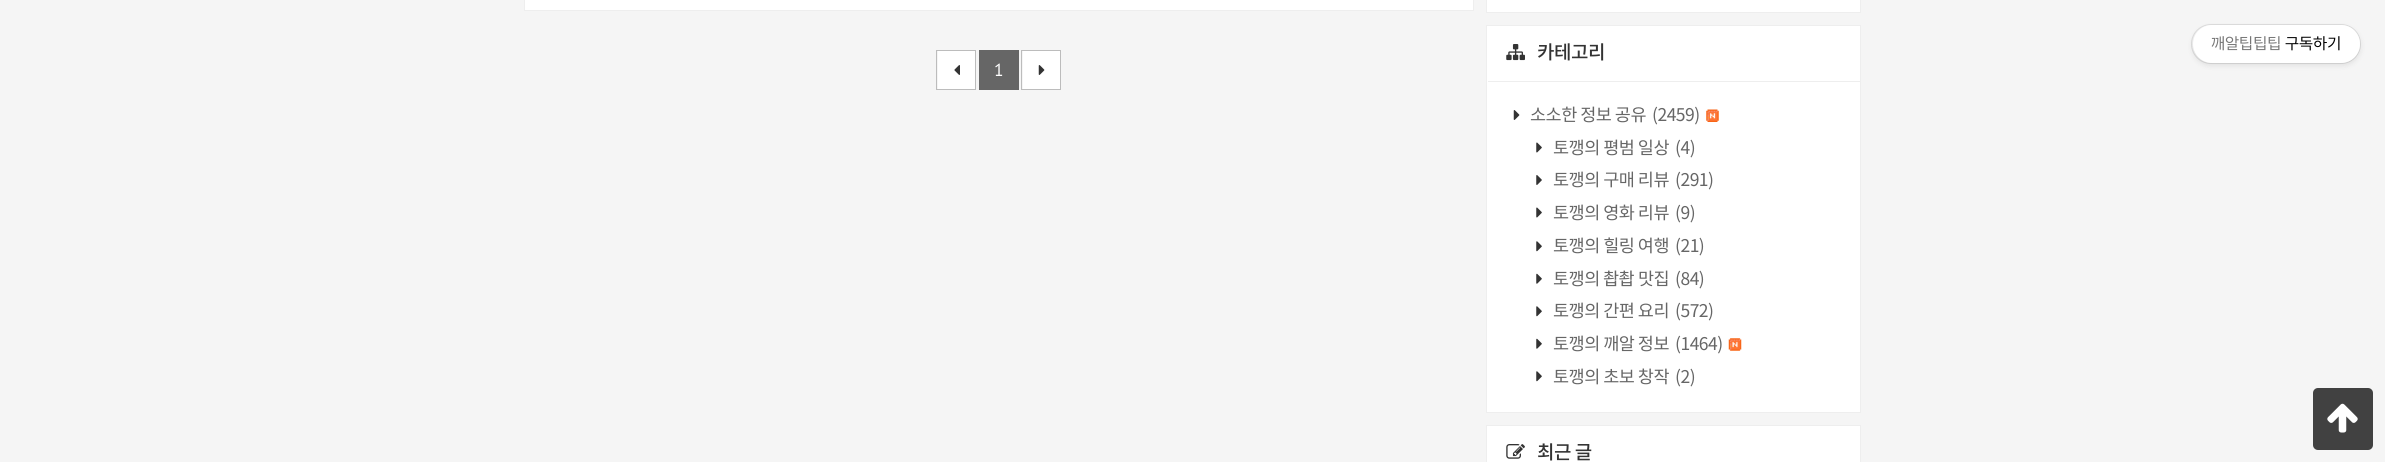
import math
import cairo

surface = cairo.ImageSurface(cairo.FORMAT_RGB24, 2385, 462)
c = cairo.Context(surface)
options = cairo.FontOptions()
options.set_hint_metrics(cairo.HINT_METRICS_OFF)
options.set_hint_style(cairo.HINT_STYLE_NONE)
c.set_font_options(options)
c.set_miter_limit(4)
def C(code):
 c.set_source_rgb(*(v / 255 for v in bytes.fromhex(code[-6:])))
def F(family, size, italic, bold):
 c.select_font_face(family, cairo.FONT_SLANT_ITALIC if italic else cairo.FONT_SLANT_NORMAL, cairo.FONT_WEIGHT_BOLD if bold else cairo.FONT_WEIGHT_NORMAL)
 c.set_font_size(size)
def T(x, y, s):
 c.move_to(x, y)
 c.show_text(s)
def L(x, y, s, letter, word):
 c.move_to(x, y)
 for ch in s:
  c.show_text(ch)
  c.rel_move_to(letter + word * (ch == ' '), 0)
def R(x, y, w, h):
 c.rectangle(x, y, w, h)
 c.fill()
def Q(x, y, w, h, r):
 c.new_sub_path()
 for i, (u, v) in enumerate([(x + w - r, y + h - r), (x + r, y + h - r), (x + r, y + r), (x + w - r, y + r)]):
  c.arc(u, v, r, i * math.pi / 2, (i + 1) * math.pi / 2)
 c.close_path()
def S(x, y, w, h, r, blur, alpha):
 c.push_group_with_content(cairo.CONTENT_ALPHA)
 c.set_operator(cairo.OPERATOR_SOURCE)
 for i in range(15, -16, -2):
  e = blur * i / 6
  if min(w, h) + 2 * e > 0:
   c.set_source_rgba(0, 0, 0, alpha * math.erfc((i - 1) / 8.5) / 2)
   Q(x - e, y - e, w + 2 * e, h + 2 * e, max(0, min(r + e + blur * .6, min(w, h) / 2 + e)))
   c.fill()
 c.mask(c.pop_group())
def I(path, x, y, w, h):
 c.save()
 c.set_source_surface(cairo.ImageSurface.create_from_png(path), x, y)
 c.rectangle(x, y, w, h)
 c.fill()
 c.restore()
C('f5f5f5')
c.paint()
C('ffffff')
c.rectangle(524.5,-.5,949,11)
c.fill_preserve()
C('eeeeee')
c.set_line_width(1)
c.stroke()
c.rectangle(936.5,50.5,39,39)
C('bcbcbc')
c.stroke()
C('ffffff')
R(938,51,37,38)
I('1.png',954,65,6,10)
c.rectangle(979.5,50.5,39,39)
C('666666')
c.stroke()
R(980,51,38,38)
F('PT Sans',17.5,0,0)
C('ffffff')
L(994,76,'1',-.5,0)
c.rectangle(1021.5,50.5,39,39)
C('bcbcbc')
c.stroke()
C('ffffff')
R(1023,51,37,38)
I('2.png',1038,65,7,10)
c.rectangle(1486.5,-.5,374,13)
c.fill_preserve()
C('eeeeee')
c.stroke()
C('ffffff')
c.rectangle(1486.5,25.5,374,387)
c.fill_preserve()
C('eeeeee')
c.stroke()
R(1488,81,372,1)
I('3.png',1506,44,19,17)
F('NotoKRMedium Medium',19,0,0)
C('333333')
L(1537,59,'카테고리',-.5,0)
I('2.png',1513,110,7,10)
F('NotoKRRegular',17.5,0,0)
C('666666')
L(1530,121,'소소한 정보 공유',-.5,0)
L(1652,121,'(2459)',-.5,0)
I('4.png',1706,109,13,13)
I('5.png',1536,142,6,11)
L(1553,154,'토깽의 평범 일상',-.5,0)
L(1675,154,'(4)',-.5,0)
I('6.png',1536,175,6,10)
L(1553,186,'토깽의 구매 리뷰',-.5,0)
L(1675,186,'(291)',-.5,0)
I('5.png',1536,207,6,11)
L(1553,219,'토깽의 영화 리뷰',-.5,0)
L(1675,219,'(9)',-.5,0)
I('7.png',1536,241,6,11)
L(1553,252,'토깽의 힐링 여행',-.5,0)
L(1675,252,'(21)',-.5,0)
I('8.png',1536,273,6,11)
L(1553,285,'토깽의',-.5,0)
F('Noto Sans KR',17.5,0,0)
L(1603,285,'촵촵',-.5,0)
F('NotoKRRegular',17.5,0,0)
L(1638,285,'맛집',-.5,0)
L(1675,285,'(84)',-.5,0)
I('7.png',1536,306,6,11)
L(1553,317,'토깽의 간편 요리',-.5,0)
L(1675,317,'(572)',-.5,0)
I('8.png',1536,338,6,11)
L(1553,350,'토깽의 깨알 정보',-.5,0)
L(1675,350,'(1464)',-.5,0)
I('9.png',1728,338,14,13)
I('7.png',1536,371,6,11)
L(1553,383,'토깽의 초보 창작',-.5,0)
L(1675,383,'(2)',-.5,0)
C('ffffff')
c.rectangle(1486.5,425.5,374,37)
c.fill_preserve()
C('eeeeee')
c.stroke()
I('10.png',1506,444,19,15)
F('NotoKRMedium Medium',19,0,0)
C('333333')
L(1537,459,'최근 글',-.5,0)
C('000000')
S(2193,28,167,37,18.5,3,.1)
Q(2191.5,24.5,169,39,19.5)
c.set_source_rgba(0,0,0,0.1)
c.stroke()
C('ffffff')
Q(2193,25,167,38,19)
c.fill()
F('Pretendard',16.25,0,0)
C('777777')
T(2211,49,'깨알팁팁팁')
C('000000')
T(2285,49,'구독하기')
C('414141')
Q(2313,388,60,62,5)
c.fill()
I('11.png',2327,403,31,30)
surface.write_to_png('o.png')
